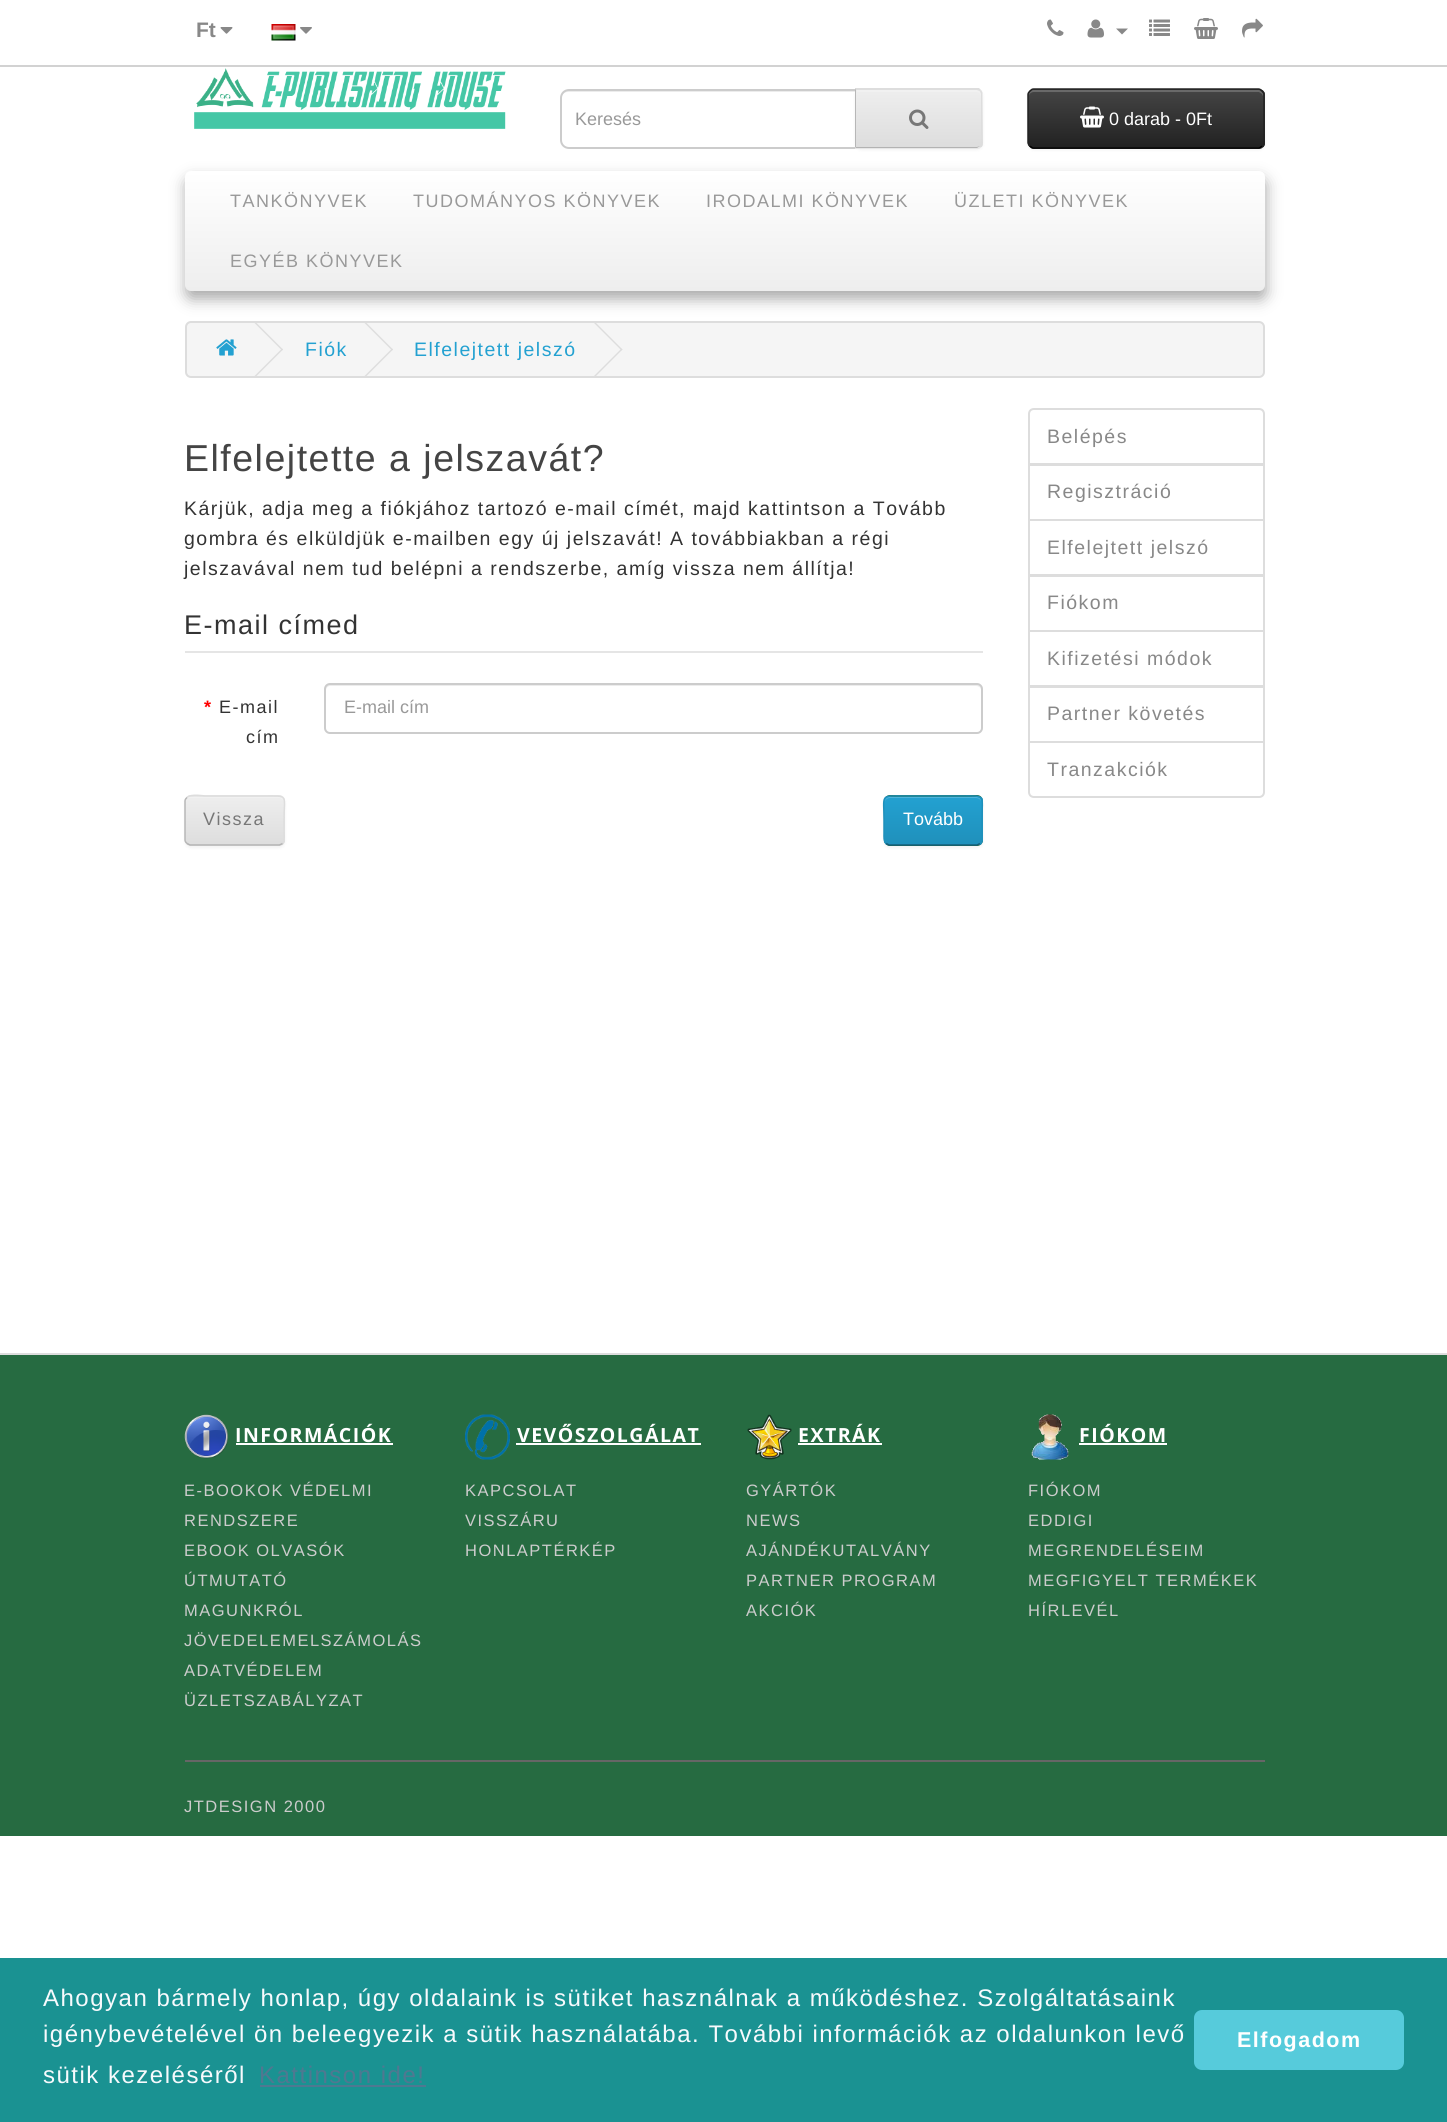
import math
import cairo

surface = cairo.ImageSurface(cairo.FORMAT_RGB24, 1447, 2122)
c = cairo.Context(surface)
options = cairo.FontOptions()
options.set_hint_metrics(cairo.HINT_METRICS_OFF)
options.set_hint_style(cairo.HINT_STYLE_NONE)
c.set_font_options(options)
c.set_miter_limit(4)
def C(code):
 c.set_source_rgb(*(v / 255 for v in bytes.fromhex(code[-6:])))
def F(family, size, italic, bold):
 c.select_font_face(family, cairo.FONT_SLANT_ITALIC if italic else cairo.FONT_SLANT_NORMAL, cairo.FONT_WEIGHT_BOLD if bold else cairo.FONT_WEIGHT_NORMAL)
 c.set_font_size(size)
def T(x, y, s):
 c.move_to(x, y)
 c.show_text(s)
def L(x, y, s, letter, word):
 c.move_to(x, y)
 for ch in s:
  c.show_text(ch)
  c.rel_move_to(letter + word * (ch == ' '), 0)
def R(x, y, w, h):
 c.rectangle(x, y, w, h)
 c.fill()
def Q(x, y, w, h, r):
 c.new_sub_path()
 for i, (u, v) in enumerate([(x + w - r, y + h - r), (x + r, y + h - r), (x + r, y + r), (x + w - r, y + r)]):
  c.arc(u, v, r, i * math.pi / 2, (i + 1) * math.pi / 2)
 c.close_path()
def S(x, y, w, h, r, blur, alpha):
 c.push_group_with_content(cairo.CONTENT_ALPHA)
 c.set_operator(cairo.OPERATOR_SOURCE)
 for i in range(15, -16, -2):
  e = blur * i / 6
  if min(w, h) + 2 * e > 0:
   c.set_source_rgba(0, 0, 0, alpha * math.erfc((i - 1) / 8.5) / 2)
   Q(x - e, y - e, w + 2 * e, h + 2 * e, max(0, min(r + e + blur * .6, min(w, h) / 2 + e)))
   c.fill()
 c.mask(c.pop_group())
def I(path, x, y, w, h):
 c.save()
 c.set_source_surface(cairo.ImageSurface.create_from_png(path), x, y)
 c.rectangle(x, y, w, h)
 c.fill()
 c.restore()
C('ffffff')
c.paint()
C('d2d2d2')
R(0,65,1447,2)
F('Liberation Sans',21,0,1)
C('888888')
T(196,37,'Ft')
I('1.png',220,27,13,7)
I('2.png',271,24,25,17)
I('3.png',300,27,12,7)
I('4.png',1047,19,17,17)
I('5.png',1087,19,17,19)
c.new_path()
c.move_to(1116,28.5)
c.line_to(1128,28.5)
c.line_to(1122,34.5)
c.close_path()
c.fill()
I('6.png',1149,19,21,17)
I('7.png',1194,18,24,21)
I('8.png',1242,18,21,20)
I('9.png',194,68,312,61)
C('ececec')
c.new_path()
c.move_to(568,92)
c.line_to(855,92)
c.line_to(855,90)
c.line_to(567,90)
c.curve_to(563,91,561,95,561,99)
c.curve_to(561,95,564,92,568,92)
c.close_path()
c.fill()
c.new_path()
c.move_to(569,90)
c.line_to(856,90)
c.line_to(856,148)
c.line_to(569,148)
c.curve_to(564.5,148,561,144.5,561,140)
c.line_to(561,98)
c.curve_to(561,93.5,564.5,90,569,90)
c.close_path()
C('cccccc')
c.stroke()
F('Liberation Sans',18,0,0)
C('999999')
T(575,125,'Keresés')
C('000000')
S(855,90,128,60,6,1.5,.05)
C('e7e7e7')
c.new_path()
c.move_to(855,89)
c.line_to(977,89)
c.curve_to(980.5,89,983,91.5,983,95)
c.line_to(983,143)
c.curve_to(983,146.5,980.5,149,977,149)
c.line_to(855,149)
c.close_path()
c.fill()
c.save()
c.new_path()
c.move_to(855,89)
c.line_to(977,89)
c.curve_to(980.5,89,983,91.5,983,95)
c.line_to(983,143)
c.curve_to(983,146.5,980.5,149,977,149)
c.line_to(855,149)
c.close_path()
c.clip()
gradient = cairo.LinearGradient(919,90,919,147)
gradient.add_color_stop_rgba(0,0.933,0.933,0.933,1)
gradient.add_color_stop_rgba(1,0.867,0.867,0.867,1)
c.set_source(gradient)
R(856,90,127,57)
c.restore()
C('f1f1f1')
c.new_path()
c.move_to(857,90)
c.line_to(857,92)
c.line_to(976,92)
c.curve_to(979,92,981,94,981,96)
c.curve_to(981,93,979,90,976,90)
c.close_path()
c.fill()
C('dddddd')
c.new_path()
c.move_to(855,88)
c.line_to(979,88)
c.line_to(981,90)
c.line_to(980,91)
c.line_to(977,90)
c.line_to(856,90)
c.close_path()
c.fill()
c.new_path()
c.move_to(981,90)
c.curve_to(982,91,982,93,982,94)
c.line_to(982,142)
c.curve_to(982,144,982,146,980,146)
c.curve_to(982,143,981,136,981,134)
c.line_to(981,94)
c.line_to(980,91)
c.close_path()
c.fill()
C('b3b3b3')
c.new_path()
c.move_to(980,146)
c.line_to(977,148)
c.line_to(856,148)
c.line_to(856,147)
c.line_to(977,147)
c.close_path()
c.fill()
C('b7b7b7')
c.new_path()
c.move_to(856,90)
c.line_to(855,88)
c.line_to(855,148)
c.line_to(856,147)
c.close_path()
c.fill()
I('10.png',909,109,20,20)
C('000000')
S(1028,90,237,60,6,1.5,.05)
C('363636')
Q(1028,89,237,60,6)
c.fill()
c.save()
Q(1028,89,237,60,6)
c.clip()
gradient = cairo.LinearGradient(1146,90,1146,147)
gradient.add_color_stop_rgba(0,0.267,0.267,0.267,1)
gradient.add_color_stop_rgba(1,0.133,0.133,0.133,1)
c.set_source(gradient)
R(1028,90,237,57)
c.restore()
c.set_source_rgba(1,1,1,0.2)
c.new_path()
c.move_to(1034,92)
c.line_to(1259,92)
c.line_to(1262,94)
c.line_to(1263,96)
c.line_to(1263,95)
c.curve_to(1263,92,1261,90,1258,90)
c.line_to(1034,90)
c.curve_to(1031,90,1029,92,1029,95)
c.line_to(1029,96)
c.curve_to(1029,94,1031,92,1034,92)
c.close_path()
c.fill()
c.new_path()
c.move_to(1262,146)
c.curve_to(1261,147,1260,148,1258.5,148)
c.line_to(1033.5,148)
c.curve_to(1032,148,1031,147,1030,146)
C('000000')
c.set_line_width(1.5)
c.stroke()
c.new_path()
c.move_to(1030,146)
c.curve_to(1029,145,1028,144,1028,142.5)
c.line_to(1028,94.5)
c.curve_to(1028,93,1029,92,1030,91)
c.curve_to(1031,90,1032,89,1033.5,89)
c.line_to(1258.5,89)
c.curve_to(1260,89,1261,90,1262,91)
c.curve_to(1263,92,1264,93,1264,94.5)
c.line_to(1264,142.5)
c.curve_to(1264,144,1263,145,1262,146)
C('222222')
c.stroke()
I('11.png',1080,106,24,22)
C('ffffff')
T(1109,125,'0 darab - 0Ft')
C('f5f5f5')
Q(186,322,1078,55,5)
c.fill_preserve()
C('dddddd')
c.set_line_width(2)
c.stroke()
C('aaaaaa')
S(186,179,1080,120,6,7.5,1)
gradient = cairo.LinearGradient(725,171,725,291)
gradient.add_color_stop_rgba(0,1,1,1,1)
gradient.add_color_stop_rgba(1,0.933,0.933,0.933,1)
c.set_source(gradient)
Q(185,171,1080,120,6)
c.fill()
C('999999')
L(230,207,'TANKÖNYVEK',1.5,0)
L(413,207,'TUDOMÁNYOS KÖNYVEK',1.5,0)
L(706,207,'IRODALMI KÖNYVEK',1.5,0)
L(954,207,'ÜZLETI KÖNYVEK',1.5,0)
L(230,267,'EGYÉB KÖNYVEK',1.5,0)
I('12.png',216,339,21,17)
C('dddddd')
c.new_path()
c.move_to(254.5,323)
c.line_to(255.5,322)
c.line_to(283,349.5)
c.line_to(282,350.5)
c.close_path()
c.fill()
c.new_path()
c.move_to(254.5,376)
c.line_to(282,348.5)
c.line_to(283,349.5)
c.line_to(255.5,377)
c.close_path()
c.fill()
F('Liberation Sans',19.5,0,0)
C('23a1d1')
L(305,356,'Fiók',1.5,0)
C('dddddd')
c.new_path()
c.move_to(364.5,323)
c.line_to(365.5,322)
c.line_to(393,349.5)
c.line_to(392,350.5)
c.close_path()
c.fill()
c.new_path()
c.move_to(364.5,376)
c.line_to(392,348.5)
c.line_to(393,349.5)
c.line_to(365.5,377)
c.close_path()
c.fill()
C('23a1d1')
L(414,356,'Elfelejtett jelszó',1.5,0)
C('dddddd')
c.new_path()
c.move_to(594,323)
c.line_to(595,322)
c.line_to(622.5,349.5)
c.line_to(621.5,350.5)
c.close_path()
c.fill()
c.new_path()
c.move_to(594,376)
c.line_to(621.5,348.5)
c.line_to(622.5,349.5)
c.line_to(595,377)
c.close_path()
c.fill()
F('Liberation Sans',37.5,0,0)
C('444444')
L(184,471,'Elfelejtette a jelszavát?',1.5,0)
F('Liberation Sans',19.5,0,0)
C('333333')
L(184,515,'Kárjük, adja meg a fiókjához tartozó e-mail címét, majd kattintson a Tovább',1.5,0)
L(184,545,'gombra és elküldjük e-mailben egy új jelszavát! A továbbiakban a régi',1.5,0)
L(184,575,'jelszavával nem tud belépni a rendszerbe, amíg vissza nem állítja!',1.5,0)
C('e5e5e5')
R(185,651,798,2)
F('Liberation Sans',27,0,0)
C('333333')
L(184,634,'E-mail címed',1.5,0)
F('Liberation Sans',18,0,1)
C('ff0000')
L(204,713,'*',1.5,0)
F('Liberation Sans',18,0,0)
C('333333')
L(219,713,'E-mail',1.5,0)
L(246,743,'cím',1.5,0)
C('ececec')
c.new_path()
c.move_to(330,686)
c.line_to(976,686)
c.curve_to(979,686,981,688,981,690)
c.line_to(981,689)
c.curve_to(981,686,979,684,976,684)
c.line_to(331,684)
c.curve_to(328,684,326,686,326,689)
c.line_to(326,690)
c.curve_to(326,688,328,686,330,686)
c.close_path()
c.fill()
Q(325,684,657,49,5)
C('cccccc')
c.stroke()
C('999999')
T(344,713,'E-mail cím')
C('000000')
S(185,797,100,51,6,1.5,.05)
C('e7e7e7')
Q(185,795,100,51,6)
c.fill()
c.save()
Q(185,795,100,51,6)
c.clip()
gradient = cairo.LinearGradient(235,797,235,845)
gradient.add_color_stop_rgba(0,0.933,0.933,0.933,1)
gradient.add_color_stop_rgba(1,0.867,0.867,0.867,1)
c.set_source(gradient)
R(185,797,100,48)
c.restore()
C('f1f1f1')
c.new_path()
c.move_to(190,798)
c.line_to(279,798)
c.curve_to(281,798,284,800,284,802)
c.curve_to(284,799,282,797,279,797)
c.line_to(191,797)
c.curve_to(188,797,186,799,186,802)
c.curve_to(186,800,188,798,190,798)
c.close_path()
c.fill()
c.new_path()
c.move_to(187,797.5)
c.curve_to(190.5,793.5,205,796,205,796)
c.line_to(264,796)
c.curve_to(289.5,796,284,794,284,820.5)
c.line_to(284,833.5)
c.curve_to(284,836.5,285,841,282.5,843.5)
C('dddddd')
c.set_line_width(1.5)
c.stroke()
c.new_path()
c.move_to(282.5,843.5)
c.line_to(279.5,845)
c.line_to(190,845)
c.line_to(187,843.5)
C('b3b3b3')
c.stroke()
c.new_path()
c.move_to(187,843.5)
c.curve_to(186,842.5,185,841.5,185,840)
c.line_to(185,801)
c.curve_to(185,799.5,186,798.5,187,797.5)
C('b7b7b7')
c.stroke()
C('777777')
L(203,825,'Vissza',1.5,0)
C('000000')
S(884,797,99,51,6,1.5,.05)
C('266b41')
Q(884,795,99,51,6)
c.fill()
c.save()
Q(884,795,99,51,6)
c.clip()
gradient = cairo.LinearGradient(933,797,933,845)
gradient.add_color_stop_rgba(0,0.137,0.631,0.82,1)
gradient.add_color_stop_rgba(1,0.122,0.565,0.733,1)
c.set_source(gradient)
R(884,797,99,48)
c.restore()
C('4fb4da')
c.new_path()
c.move_to(890,798)
c.line_to(976,798)
c.curve_to(979,798,981,800,981,802)
c.curve_to(981,799,979,797,976,797)
c.line_to(890,797)
c.curve_to(887,797,885,799,885,802)
c.curve_to(885,800,887,798,890,798)
c.close_path()
c.fill()
c.new_path()
c.move_to(980,843.5)
c.line_to(977,845)
c.line_to(889,845)
c.line_to(886,843.5)
C('145e7a')
c.stroke()
c.new_path()
c.move_to(886,843.5)
c.curve_to(883.5,841,884,836.5,884,833.5)
c.line_to(884,820.5)
c.curve_to(884,794,879.5,796,904,796)
c.line_to(962,796)
c.curve_to(986.5,796,982,794,982,820.5)
c.line_to(982,833.5)
c.curve_to(982,836.5,982.5,841,980,843.5)
C('1f90bb')
c.stroke()
C('ffffff')
T(903,825,'Tovább')
c.new_path()
c.move_to(1034,409)
c.line_to(1259,409)
c.curve_to(1262,409,1264,411,1264,414)
c.line_to(1264,464)
c.line_to(1029,464)
c.line_to(1029,414)
c.curve_to(1029,411,1031,409,1034,409)
c.close_path()
C('dddddd')
c.set_line_width(2)
c.stroke()
F('Liberation Sans',19.5,0,0)
C('888888')
L(1047,443,'Belépés',1.5,0)
c.rectangle(1029,465,235,55)
C('dddddd')
c.stroke()
C('888888')
L(1047,498,'Regisztráció',1.5,0)
c.rectangle(1029,520,235,55)
C('dddddd')
c.stroke()
C('888888')
L(1047,554,'Elfelejtett jelszó',1.5,0)
c.rectangle(1029,576,235,55)
C('dddddd')
c.stroke()
C('888888')
L(1047,609,'Fiókom',1.5,0)
c.rectangle(1029,631,235,55)
C('dddddd')
c.stroke()
C('888888')
L(1047,665,'Kifizetési módok',1.5,0)
c.rectangle(1029,687,235,55)
C('dddddd')
c.stroke()
C('888888')
L(1047,720,'Partner követés',1.5,0)
C('ffffff')
c.new_path()
c.move_to(1029,742)
c.line_to(1264,742)
c.line_to(1264,792)
c.curve_to(1264,795,1262,797,1259,797)
c.line_to(1034,797)
c.curve_to(1031,797,1029,795,1029,792)
c.close_path()
c.fill_preserve()
C('dddddd')
c.stroke()
C('888888')
L(1047,776,'Tranzakciók',1.5,0)
C('266b41')
R(0,1355,1447,481)
C('dddddd')
R(0,1353,1447,2)
I('13.png',184,1414,44,45)
F('Open Sans',19.5,0,1)
C('ffffff')
L(235,1442,'INFORMÁCIÓK',1.5,0)
R(236,1443,157,2)
F('Liberation Sans',16.5,0,0)
C('cccccc')
L(184,1496,'E-BOOKOK VÉDELMI',1.5,0)
L(184,1526,'RENDSZERE',1.5,0)
L(184,1556,'EBOOK OLVASÓK',1.5,0)
L(184,1586,'ÚTMUTATÓ',1.5,0)
L(184,1616,'MAGUNKRÓL',1.5,0)
L(184,1646,'JÖVEDELEMELSZÁMOLÁS',1.5,0)
L(184,1676,'ADATVÉDELEM',1.5,0)
L(184,1706,'ÜZLETSZABÁLYZAT',1.5,0)
I('14.png',465,1414,45,46)
F('Open Sans',19.5,0,1)
C('ffffff')
L(517,1442,'VEVŐSZOLGÁLAT',1.5,0)
R(516,1443,185,2)
F('Liberation Sans',16.5,0,0)
C('cccccc')
L(465,1496,'KAPCSOLAT',1.5,0)
L(465,1526,'VISSZÁRU',1.5,0)
L(465,1556,'HONLAPTÉRKÉP',1.5,0)
I('15.png',747,1414,45,46)
F('Open Sans',19.5,0,1)
C('ffffff')
L(798,1442,'EXTRÁK',1.5,0)
R(798,1443,84,2)
F('Liberation Sans',16.5,0,0)
C('cccccc')
L(746,1496,'GYÁRTÓK',1.5,0)
L(746,1526,'NEWS',1.5,0)
L(746,1556,'AJÁNDÉKUTALVÁNY',1.5,0)
L(746,1586,'PARTNER PROGRAM',1.5,0)
L(746,1616,'AKCIÓK',1.5,0)
I('16.png',1031,1414,38,46)
F('Open Sans',19.5,0,1)
C('ffffff')
L(1079,1442,'FIÓKOM',1.5,0)
R(1079,1443,88,2)
F('Liberation Sans',16.5,0,0)
C('cccccc')
L(1028,1496,'FIÓKOM',1.5,0)
L(1028,1526,'EDDIGI',1.5,0)
L(1028,1556,'MEGRENDELÉSEIM',1.5,0)
L(1028,1586,'MEGFIGYELT TERMÉKEK',1.5,0)
L(1028,1616,'HÍRLEVÉL',1.5,0)
C('666666')
R(185,1760,1080,2)
C('cccccc')
L(184,1812,'JTDESIGN 2000',1.5,0)
C('1a9292')
R(0,1958,1447,164)
F('Liberation Sans',24,0,0)
C('f7fafd')
L(43,2006,'Ahogyan bármely honlap, úgy oldalaink is sütiket használnak a működéshez. Szolgáltatásaink',1.5,0)
L(43,2042,'igénybevételével ön beleegyezik a sütik használatába. További információk az oldalunkon levő',1.5,0)
L(43,2083,'sütik kezeléséről',1.5,0)
C('4f7891')
L(259,2083,'Kattinson ide!',1.5,0)
R(260,2085,166,2)
C('56cbdb')
Q(1194,2010,210,60,8)
c.fill()
F('Liberation Sans',21.5,0,1)
C('ffffff')
L(1237,2047,'Elfogadom',1.5,0)
surface.write_to_png('o.png')
